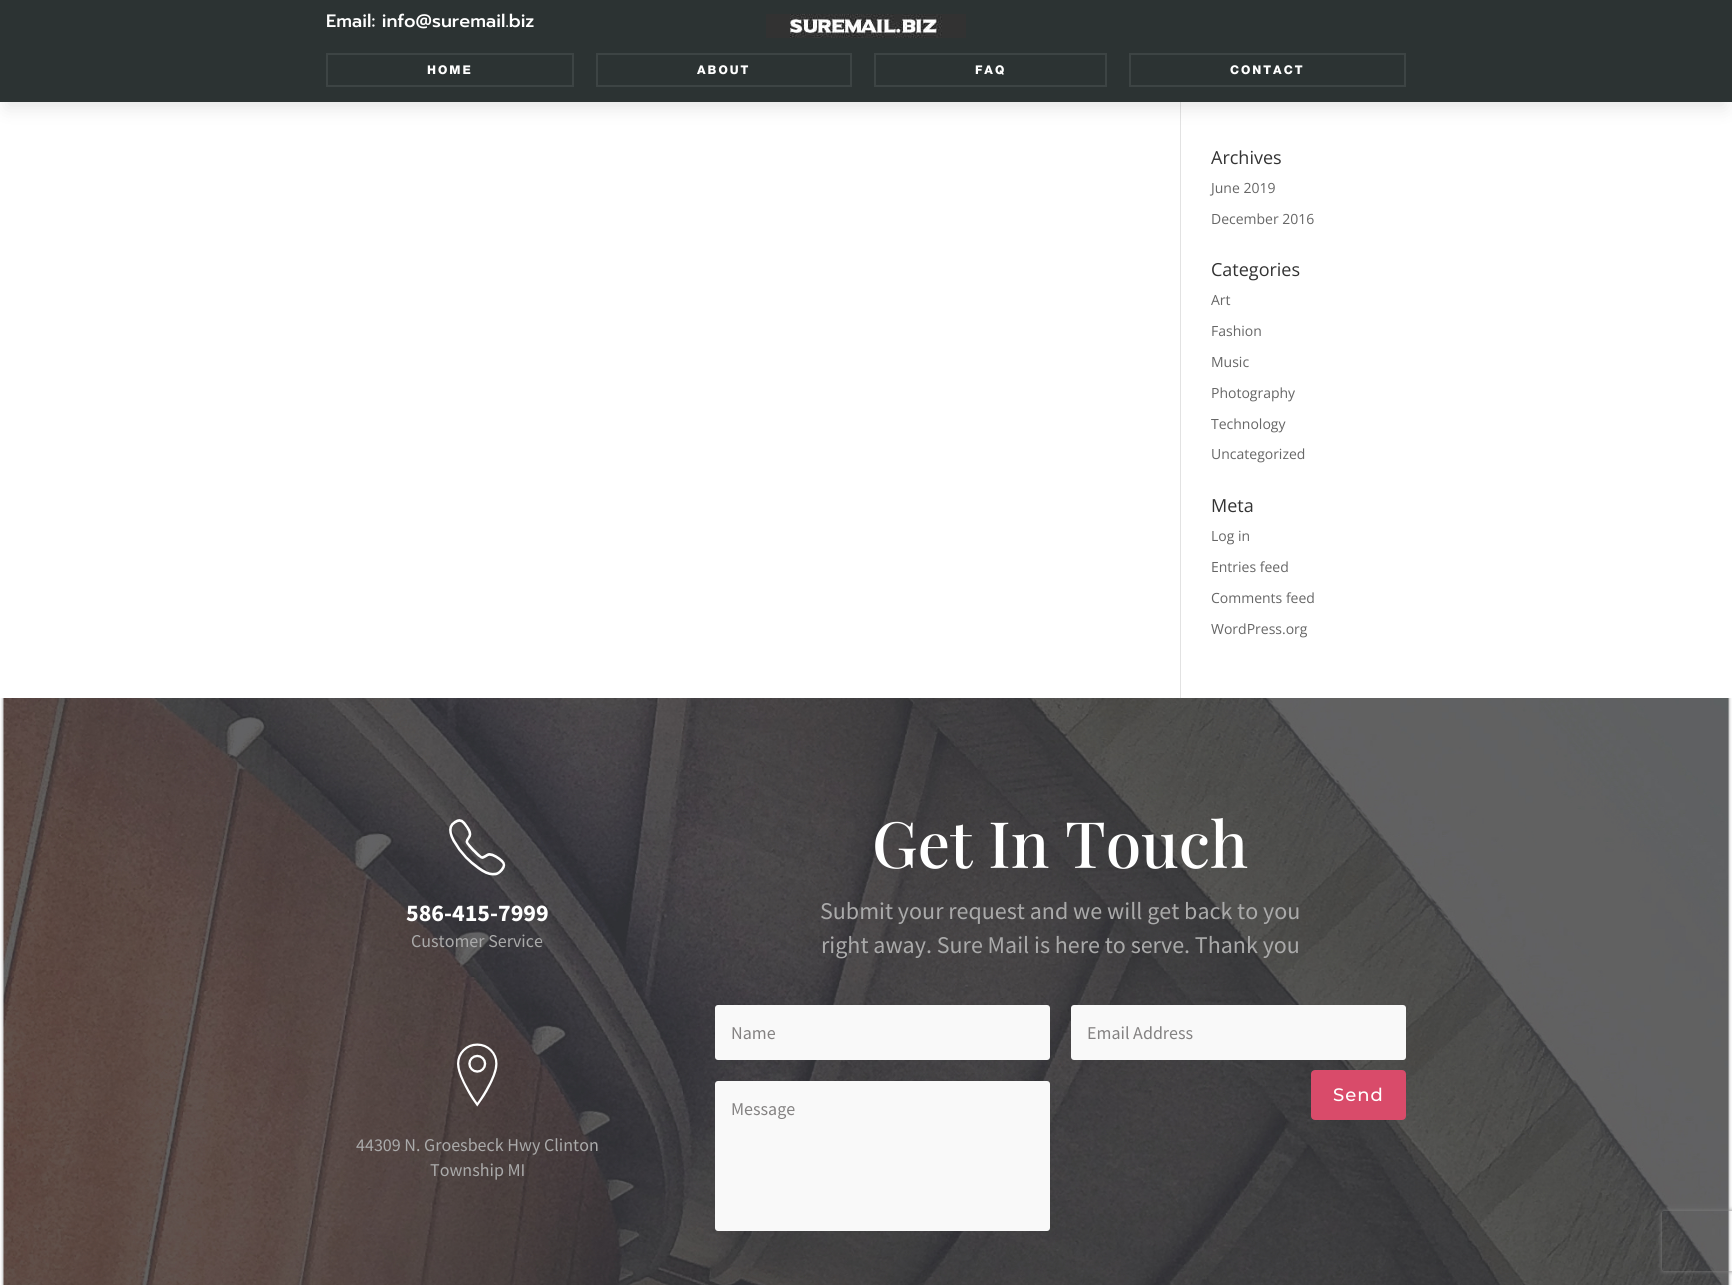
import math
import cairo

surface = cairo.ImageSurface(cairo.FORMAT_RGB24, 1732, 1285)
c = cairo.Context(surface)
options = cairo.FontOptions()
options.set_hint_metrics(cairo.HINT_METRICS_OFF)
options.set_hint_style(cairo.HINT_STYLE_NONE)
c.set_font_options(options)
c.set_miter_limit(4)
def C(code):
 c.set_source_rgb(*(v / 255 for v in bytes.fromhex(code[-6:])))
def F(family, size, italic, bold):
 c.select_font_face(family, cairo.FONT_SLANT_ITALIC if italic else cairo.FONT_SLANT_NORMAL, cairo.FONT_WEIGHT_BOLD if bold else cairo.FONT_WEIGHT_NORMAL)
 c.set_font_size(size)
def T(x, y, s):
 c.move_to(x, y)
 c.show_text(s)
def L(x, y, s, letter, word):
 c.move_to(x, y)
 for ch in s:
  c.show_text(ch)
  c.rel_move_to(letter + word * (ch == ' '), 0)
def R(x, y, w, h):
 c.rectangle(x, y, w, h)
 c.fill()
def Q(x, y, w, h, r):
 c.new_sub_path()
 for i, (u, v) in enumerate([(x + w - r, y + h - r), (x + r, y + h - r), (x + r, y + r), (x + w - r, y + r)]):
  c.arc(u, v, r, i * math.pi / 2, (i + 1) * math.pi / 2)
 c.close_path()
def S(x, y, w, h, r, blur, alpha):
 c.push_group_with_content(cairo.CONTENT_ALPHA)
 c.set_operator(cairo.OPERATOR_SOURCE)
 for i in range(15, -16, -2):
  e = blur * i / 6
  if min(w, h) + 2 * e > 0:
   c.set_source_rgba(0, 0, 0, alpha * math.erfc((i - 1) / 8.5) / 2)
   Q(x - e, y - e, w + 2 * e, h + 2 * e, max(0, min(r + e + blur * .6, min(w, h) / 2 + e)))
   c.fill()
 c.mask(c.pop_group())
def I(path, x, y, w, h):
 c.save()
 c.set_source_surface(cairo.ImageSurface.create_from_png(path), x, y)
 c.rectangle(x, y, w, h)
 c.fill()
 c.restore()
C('ffffff')
c.paint()
C('e2e2e2')
R(1180,102,1,596)
C('000000')
S(6,18,1720,90,0,9,.1)
C('2c3333')
R(0,0,1732,102)
F('Prompt Medium',18,0,0)
C('ffffff')
T(326,27,'Email: info@suremail.biz')
I('1.png',766,14,200,24)
c.rectangle(327,54,246,32)
C('3d4444')
c.stroke()
F('Almarai ExtraBold',12,0,0)
C('ffffff')
L(427,74,'HOME',2,0)
c.rectangle(597,54,254,32)
C('3d4444')
c.stroke()
C('ffffff')
L(697,74,'ABOUT',2,0)
c.rectangle(875,54,231,32)
C('3d4444')
c.stroke()
C('ffffff')
L(975,74,'FAQ',2,0)
c.rectangle(1130,54,275,32)
C('3d4444')
c.stroke()
C('ffffff')
L(1230,74,'CONTACT',2,0)
F('Open Sans',18,0,0)
C('333333')
T(1211,164,'Archives')
F('Open Sans',14,0,0)
C('666666')
T(1211,193,'June 2019')
T(1211,224,'December 2016')
F('Open Sans',18,0,0)
C('333333')
T(1211,276,'Categories')
F('Open Sans',14,0,0)
C('666666')
T(1211,305,'Art')
T(1211,336,'Fashion')
T(1211,367,'Music')
T(1211,398,'Photography')
T(1211,429,'Technology')
T(1211,459,'Uncategorized')
F('Open Sans',18,0,0)
C('333333')
T(1211,512,'Meta')
F('Open Sans',14,0,0)
C('666666')
T(1211,541,'Log in')
T(1211,572,'Entries feed')
T(1211,603,'Comments feed')
T(1211,634,'WordPress.org')
I('2.png',0,698,1732,587)
I('3.png',449,819,57,57)
F('Source Sans Pro',24,0,1)
C('ffffff')
T(406,921,'586-415-7999')
F('Source Sans Pro',18,0,0)
C('aaaaaa')
T(411,947,'Customer Service')
I('4.png',457,1043,41,64)
T(356,1151,'44309 N. Groesbeck Hwy Clinton')
T(430,1176,'Township MI')
F('Playfair Display Medium',64,0,0)
C('ffffff')
T(872,868,'Get In Touch')
F('Source Sans Pro',24,0,0)
C('aaaaaa')
T(820,919,'Submit your request and we will get back to you')
T(821,953,'right away. Sure Mail is here to serve. Thank you')
C('f9f9f9')
Q(715,1005,335,55,3)
c.fill()
F('Source Sans Pro',18,0,0)
C('848282')
T(731,1039,'Name')
C('f9f9f9')
Q(1071,1005,335,55,3)
c.fill()
C('848282')
T(1087,1039,'Email Address')
C('d94b6a')
Q(1313,1072,91,46,2)
c.fill_preserve()
c.set_line_width(4)
c.stroke()
F('Montserrat Medium',18,0,0)
C('ffffff')
L(1333,1101,'Send',1,0)
C('f9f9f9')
Q(715,1081,335,150,3)
c.fill()
F('Source Sans Pro',18,0,0)
C('848282')
T(731,1115,'Message')
c.save()
c.set_fill_rule(cairo.FILL_RULE_EVEN_ODD)
c.new_path()
c.move_to(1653,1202)
c.line_to(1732,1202)
c.line_to(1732,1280)
c.line_to(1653,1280)
c.close_path()
c.move_to(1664,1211)
c.line_to(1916,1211)
c.curve_to(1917,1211,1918,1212,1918,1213)
c.line_to(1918,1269)
c.curve_to(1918,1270,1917,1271,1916,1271)
c.line_to(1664,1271)
c.curve_to(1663,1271,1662,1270,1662,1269)
c.line_to(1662,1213)
c.curve_to(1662,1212,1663,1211,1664,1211)
c.close_path()
c.clip()
C('808080')
S(1662,1211,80,60,2,2.5,1)
c.restore()
surface.write_to_png('o.png')
